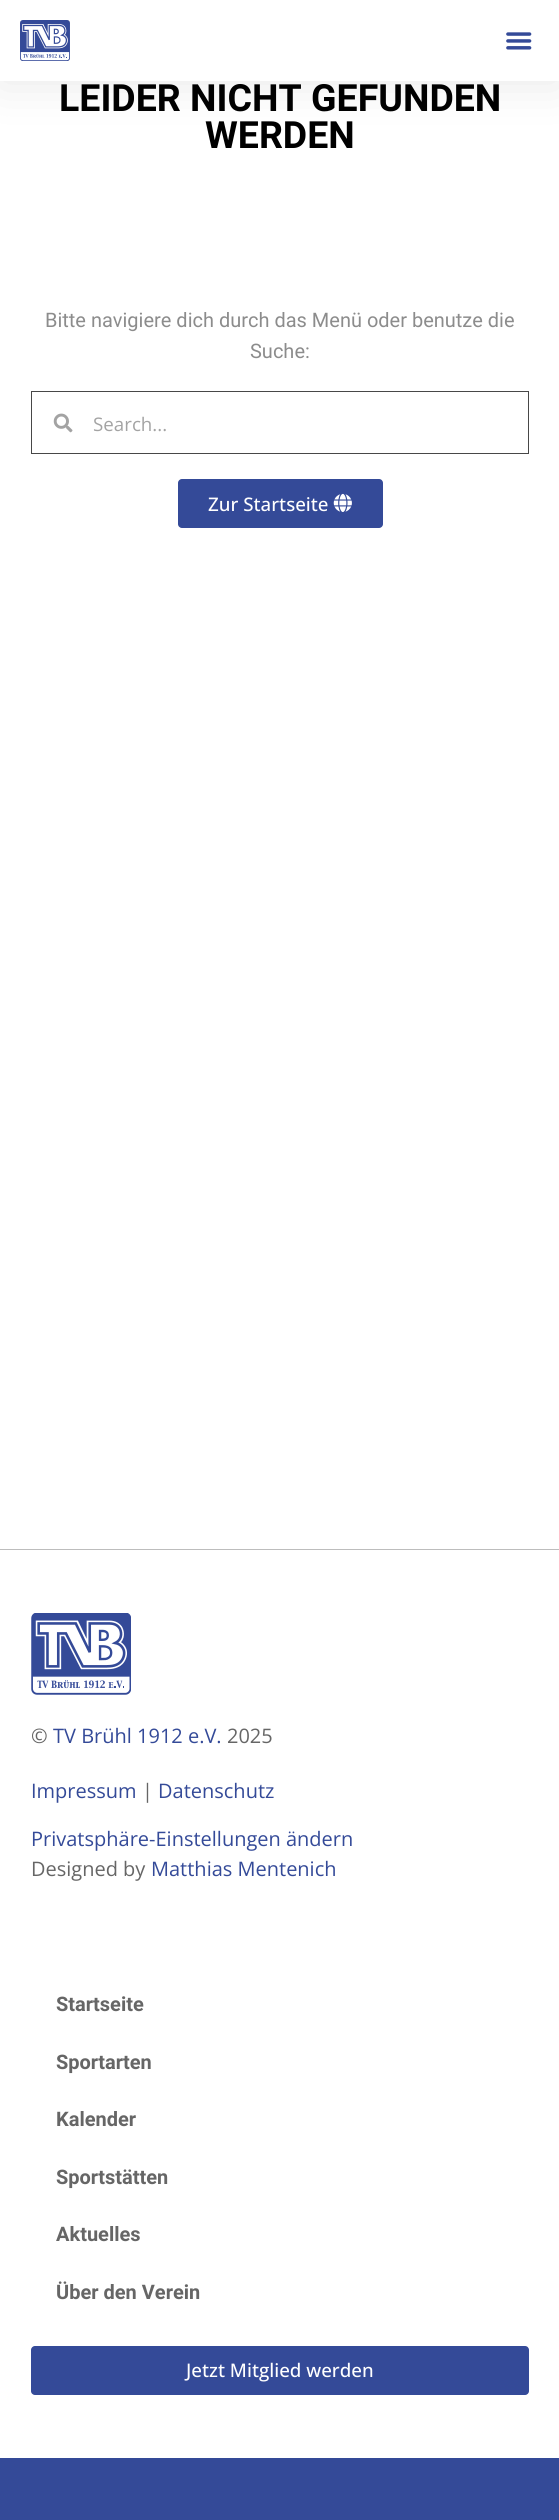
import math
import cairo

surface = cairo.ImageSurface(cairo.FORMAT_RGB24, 559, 2520)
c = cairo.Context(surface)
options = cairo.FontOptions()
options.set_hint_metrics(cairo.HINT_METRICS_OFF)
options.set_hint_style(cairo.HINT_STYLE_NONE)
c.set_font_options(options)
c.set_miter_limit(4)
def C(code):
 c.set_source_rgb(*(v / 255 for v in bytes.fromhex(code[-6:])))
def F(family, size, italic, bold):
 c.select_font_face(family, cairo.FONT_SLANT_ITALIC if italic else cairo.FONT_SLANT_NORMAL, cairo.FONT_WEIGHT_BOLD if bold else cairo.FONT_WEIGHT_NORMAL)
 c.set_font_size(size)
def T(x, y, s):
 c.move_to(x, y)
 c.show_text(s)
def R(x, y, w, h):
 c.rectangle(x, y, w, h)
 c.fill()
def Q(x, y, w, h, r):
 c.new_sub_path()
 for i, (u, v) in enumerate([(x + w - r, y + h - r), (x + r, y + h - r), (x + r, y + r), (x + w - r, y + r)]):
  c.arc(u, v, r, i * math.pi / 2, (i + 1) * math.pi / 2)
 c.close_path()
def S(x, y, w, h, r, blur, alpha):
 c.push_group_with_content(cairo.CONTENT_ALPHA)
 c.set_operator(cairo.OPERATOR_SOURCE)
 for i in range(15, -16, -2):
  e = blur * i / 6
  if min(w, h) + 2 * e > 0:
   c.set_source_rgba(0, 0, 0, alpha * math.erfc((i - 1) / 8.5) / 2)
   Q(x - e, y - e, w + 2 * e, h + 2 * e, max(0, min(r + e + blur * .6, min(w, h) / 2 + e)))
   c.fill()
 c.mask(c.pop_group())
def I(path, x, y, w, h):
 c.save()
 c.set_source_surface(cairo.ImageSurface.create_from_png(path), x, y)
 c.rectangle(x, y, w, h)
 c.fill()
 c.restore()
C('ffffff')
c.paint()
C('000000')
S(0,0,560,81,0,24,.1)
C('ffffff')
R(0,0,559,81)
I('1.png',20,20,50,41)
I('2.png',506,32,26,18)
F('Roboto',37.5,0,1)
C('000000')
T(59,111,'LEIDER NICHT GEFUNDEN')
T(205,148,'WERDEN')
F('Roboto',20,0,0)
C('8c8c8c')
T(45,327,'Bitte navigiere dich durch das Menü oder benutze die')
T(250,358,'Suche:')
c.rectangle(31.5,391.5,497,62)
C('474747')
c.set_line_width(1)
c.stroke()
I('3.png',53,413,20,20)
F('Open Sans',18.75,0,0)
C('a3a3a3')
T(93,431,'Search...')
C('344a98')
Q(178,479,205,49,4)
c.fill()
F('Open Sans Medium',18.75,0,0)
C('ffffff')
T(208,511,'Zur Startseite')
I('4.png',333,493,19,19)
C('bdbdbd')
R(0,1549,559,1)
I('5.png',31,1613,100,82)
F('Open Sans',20,0,0)
C('666666')
T(31,1743,'©')
C('344a98')
T(53,1743,'TV Brühl 1912 e.V.')
C('666666')
T(227,1743,'2025')
C('344a98')
T(31,1798,'Impressum')
C('666666')
T(142,1798,'|')
C('344a98')
T(158,1798,'Datenschutz')
T(31,1846,'Privatsphäre-Einstellungen ändern')
C('666666')
T(31,1876,'Designed by')
C('344a98')
T(151,1876,'Matthias Mentenich')
F('Roboto',20,0,1)
C('666666')
T(56,2011,'Startseite')
T(56,2069,'Sportarten')
T(56,2126,'Kalender')
T(56,2184,'Sportstätten')
T(56,2241,'Aktuelles')
T(56,2299,'Über den Verein')
C('344a98')
Q(31,2346,498,49,4)
c.fill()
F('Open Sans Medium',18.75,0,0)
C('ffffff')
T(186,2377,'Jetzt Mitglied werden')
C('344a98')
R(0,2458,559,62)
surface.write_to_png('o.png')
